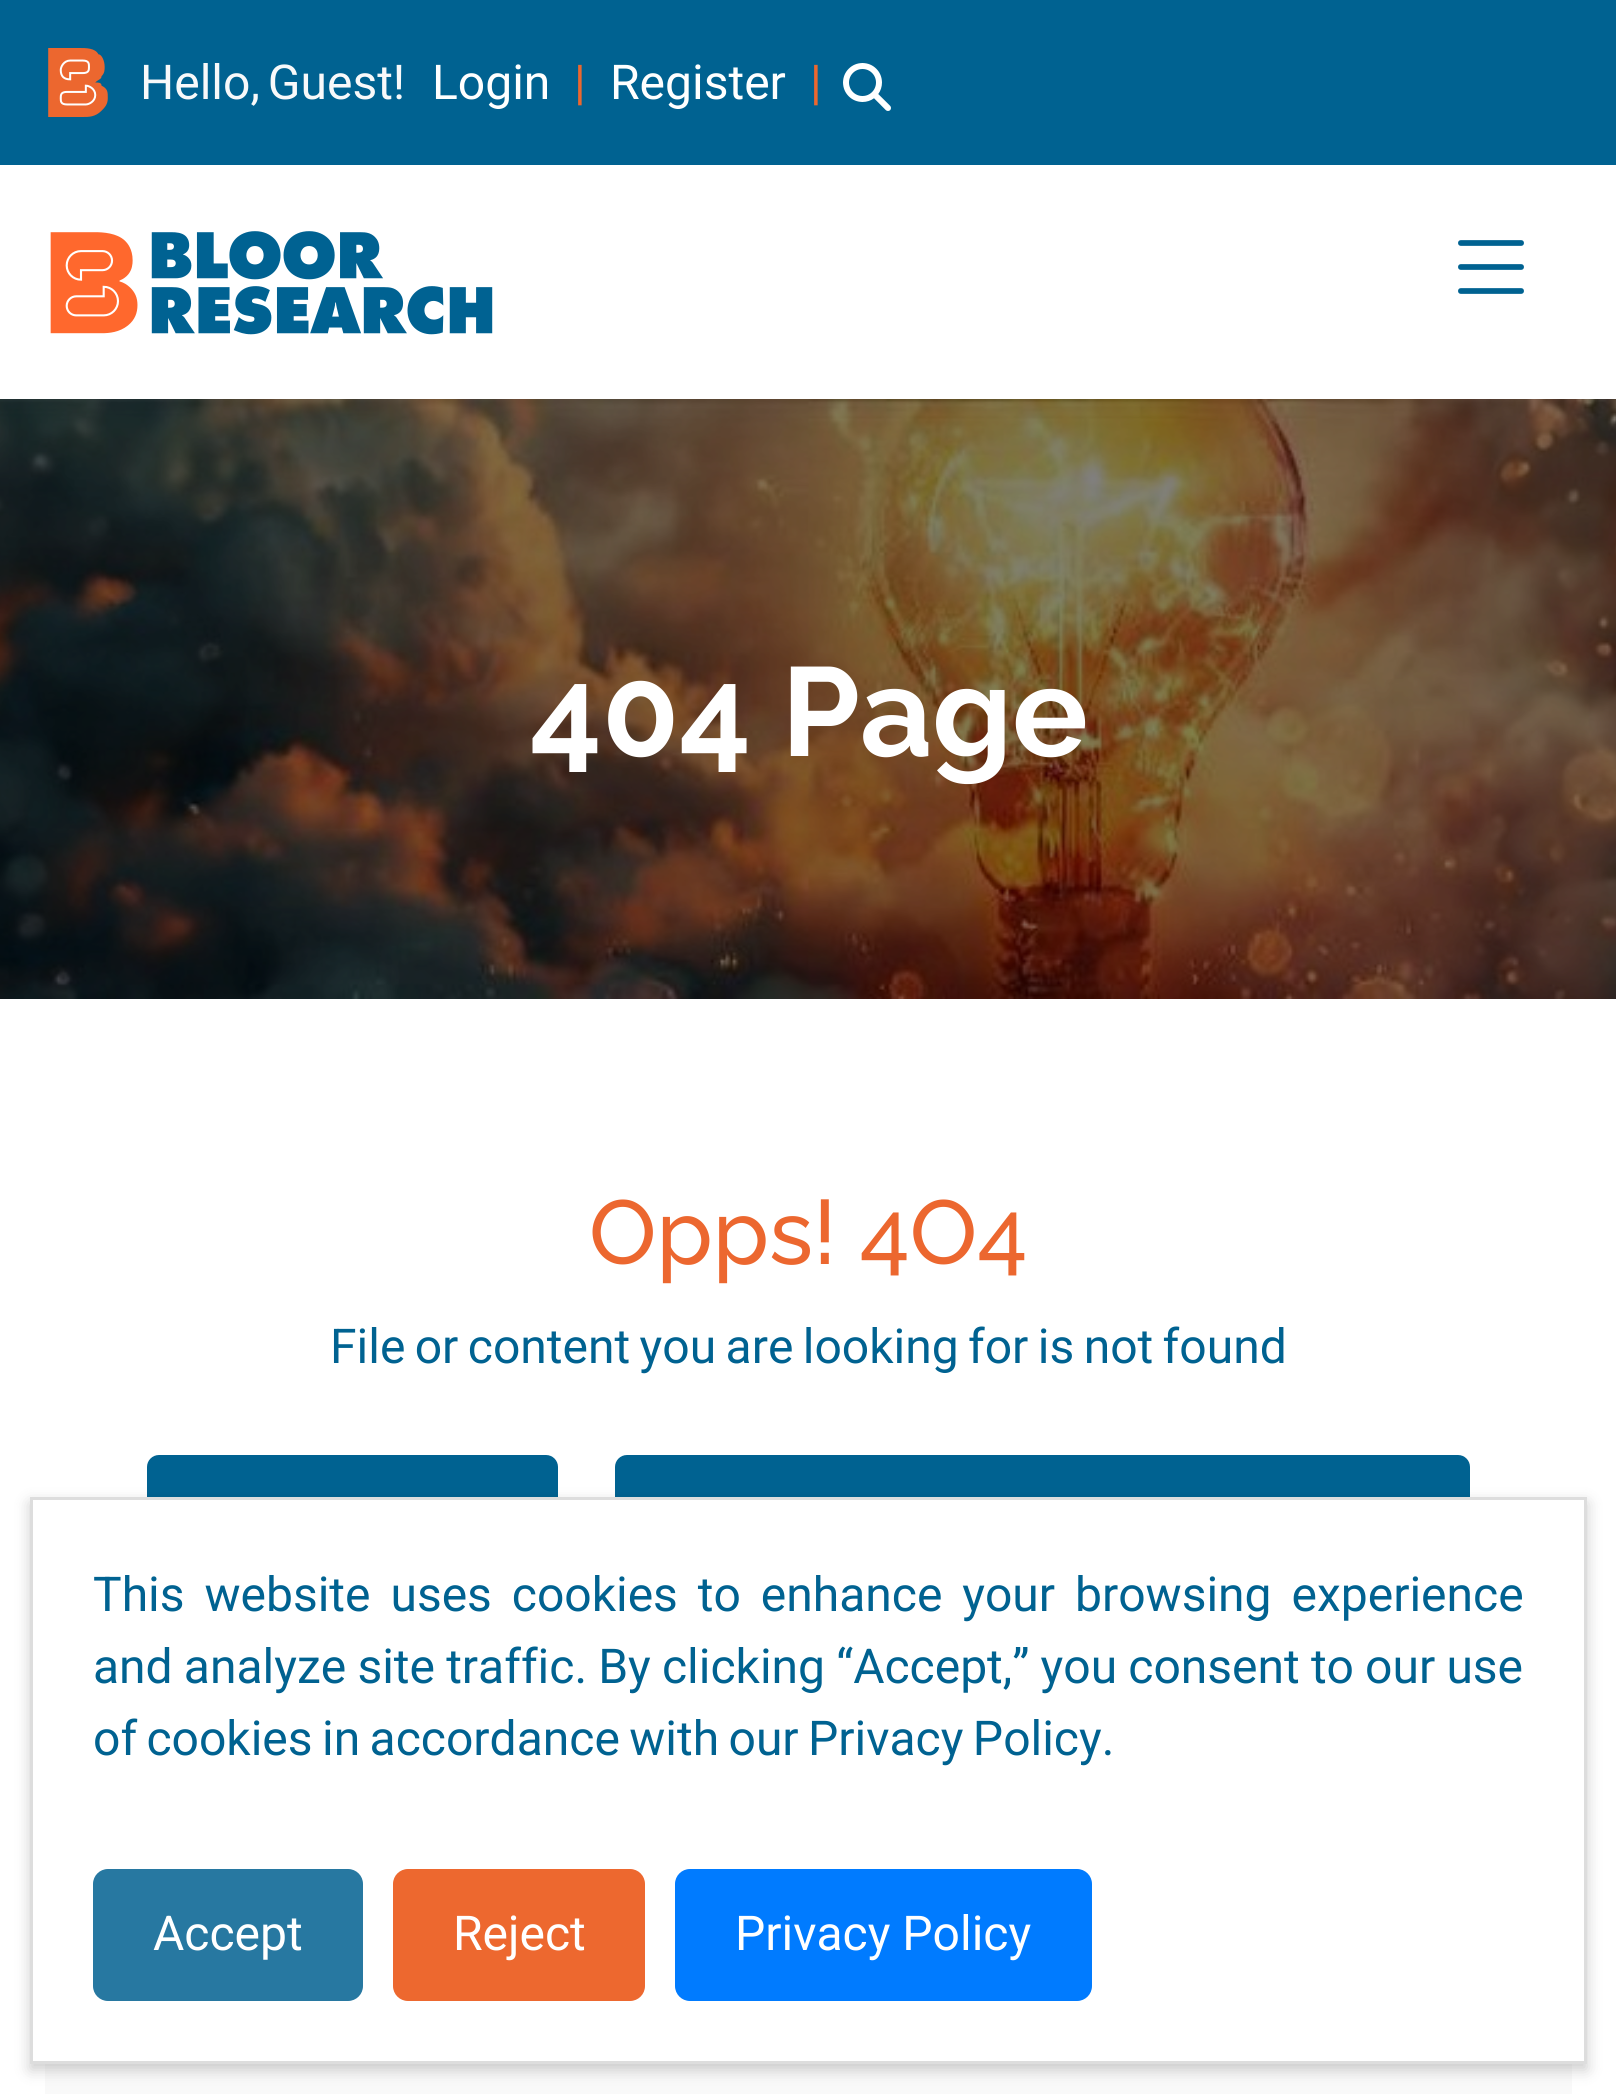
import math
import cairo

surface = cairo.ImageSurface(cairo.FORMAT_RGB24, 1616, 2094)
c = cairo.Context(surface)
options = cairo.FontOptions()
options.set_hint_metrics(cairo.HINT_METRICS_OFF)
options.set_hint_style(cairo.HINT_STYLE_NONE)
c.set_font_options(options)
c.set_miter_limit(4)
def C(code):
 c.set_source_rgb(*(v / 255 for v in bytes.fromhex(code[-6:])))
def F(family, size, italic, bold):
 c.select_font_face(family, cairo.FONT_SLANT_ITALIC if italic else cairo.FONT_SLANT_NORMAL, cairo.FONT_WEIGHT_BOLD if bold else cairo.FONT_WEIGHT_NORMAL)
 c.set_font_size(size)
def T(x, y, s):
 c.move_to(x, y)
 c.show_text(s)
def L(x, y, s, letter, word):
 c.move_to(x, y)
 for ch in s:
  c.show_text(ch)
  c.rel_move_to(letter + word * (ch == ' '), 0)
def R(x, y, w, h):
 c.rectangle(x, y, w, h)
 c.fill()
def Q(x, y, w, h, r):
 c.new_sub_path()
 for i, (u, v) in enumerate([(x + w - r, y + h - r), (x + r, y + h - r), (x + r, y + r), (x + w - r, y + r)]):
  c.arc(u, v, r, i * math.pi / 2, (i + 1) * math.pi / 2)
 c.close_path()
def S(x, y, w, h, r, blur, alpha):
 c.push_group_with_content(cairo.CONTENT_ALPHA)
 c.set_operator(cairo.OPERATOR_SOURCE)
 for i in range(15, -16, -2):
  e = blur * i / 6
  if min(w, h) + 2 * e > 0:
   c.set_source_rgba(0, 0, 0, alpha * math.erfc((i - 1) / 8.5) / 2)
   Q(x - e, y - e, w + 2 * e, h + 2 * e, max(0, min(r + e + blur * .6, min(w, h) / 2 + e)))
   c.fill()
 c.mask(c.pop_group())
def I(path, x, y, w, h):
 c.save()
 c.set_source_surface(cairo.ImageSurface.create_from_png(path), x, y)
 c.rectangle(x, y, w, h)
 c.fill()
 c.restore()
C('ffffff')
c.paint()
C('006291')
R(0,0,1616,165)
I('1.png',48,48,60,69)
F('Roboto',48,0,0)
C('f8f9fa')
L(140,99,'Hello, Guest!',0,-4)
C('ffffff')
T(432,99,'Login')
C('ec672f')
T(574,99,'|')
C('ffffff')
T(610,99,'Register')
C('ec672f')
T(810,99,'|')
I('2.png',843,63,48,48)
I('3.png',50,231,443,104)
I('4.png',1458,240,66,54)
I('5.png',0,399,1616,600)
F('Raleway',126,0,1)
C('ffffff')
T(530,756,'404 Page')
F('Raleway Medium',90.25,0,0)
C('ec672f')
T(589,1264,'Opps! 4O4')
F('Roboto',48,0,0)
C('006291')
L(330,1363,'File or content you are looking for is not found',0,-2.5)
Q(147,1455,411,162,12)
c.fill()
Q(615,1455,855,162,12)
c.fill()
C('f9f9f9')
R(45,2064,1527,30)
C('000000')
S(30,1503,1557,567,0,7.5,.2)
C('ffffff')
c.rectangle(31.5,1498.5,1554,564)
c.fill_preserve()
C('dddddd')
c.set_line_width(3)
c.stroke()
C('006291')
L(93,1611,'This website uses cookies to enhance your browsing experience',0,8)
L(93,1683,'and analyze site traffic. By clicking “Accept,” you consent to our use',0,-.75)
L(93,1755,'of cookies in accordance with our Privacy Policy.',0,-2.5)
C('2778a1')
Q(93,1869,270,132,15)
c.fill()
C('ffffff')
T(153,1950,'Accept')
C('ed682f')
Q(393,1869,252,132,15)
c.fill()
C('ffffff')
T(453,1950,'Reject')
C('007bff')
Q(675,1869,417,132,15)
c.fill()
C('ffffff')
T(735,1950,'Privacy Policy')
surface.write_to_png('o.png')
